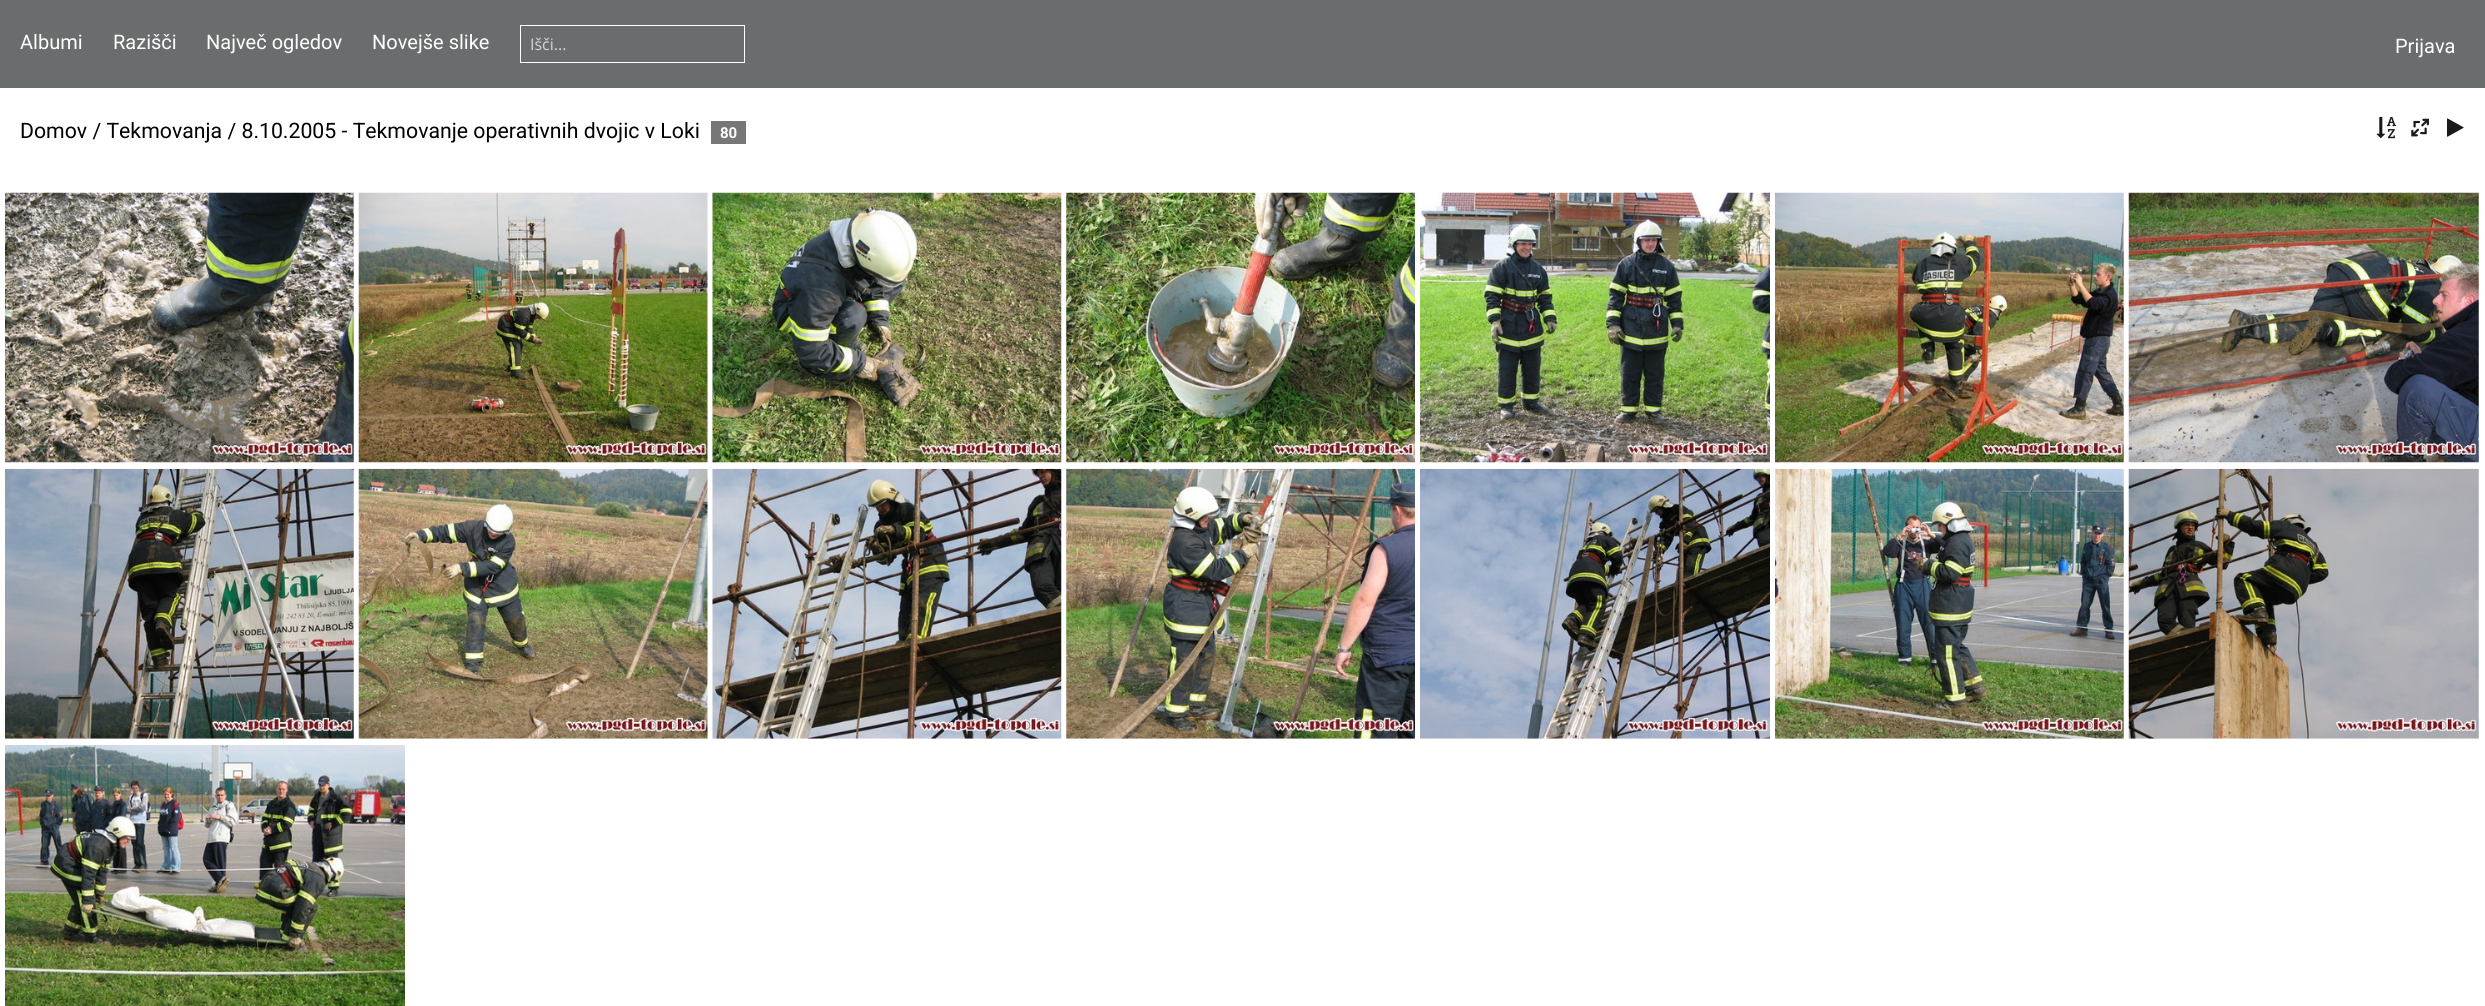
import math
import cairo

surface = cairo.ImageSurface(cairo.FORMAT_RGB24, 2485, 1006)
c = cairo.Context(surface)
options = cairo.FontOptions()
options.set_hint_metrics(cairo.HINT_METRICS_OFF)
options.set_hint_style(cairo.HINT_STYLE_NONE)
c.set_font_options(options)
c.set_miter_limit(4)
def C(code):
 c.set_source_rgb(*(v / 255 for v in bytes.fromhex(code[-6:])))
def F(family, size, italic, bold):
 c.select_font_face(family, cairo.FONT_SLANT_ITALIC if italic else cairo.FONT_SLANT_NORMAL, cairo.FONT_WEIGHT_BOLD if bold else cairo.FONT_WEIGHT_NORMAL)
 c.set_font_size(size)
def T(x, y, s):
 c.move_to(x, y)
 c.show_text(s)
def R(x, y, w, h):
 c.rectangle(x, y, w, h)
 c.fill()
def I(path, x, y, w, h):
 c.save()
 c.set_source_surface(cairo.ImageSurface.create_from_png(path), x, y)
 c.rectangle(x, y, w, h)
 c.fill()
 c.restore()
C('ffffff')
c.paint()
C('6a6d6d')
R(0,0,2485,88)
F('Roboto',20,0,0)
C('ffffff')
T(20,49,'Albumi')
T(113,49,'Razišči')
T(206,49,'Največ ogledov')
T(372,49,'Novejše slike')
c.rectangle(520.5,25.5,224,37)
c.set_line_width(1)
c.stroke()
F('Open Sans',16,0,0)
C('d6d6d6')
T(530,50,'Išči...')
F('Roboto',20,0,0)
C('ffffff')
T(2395,53,'Prijava')
F('Roboto',21.25,0,0)
C('000000')
T(20,138,'Domov / Tekmovanja / 8.10.2005 - Tekmovanje operativnih dvojic v Loki')
C('777777')
R(711,121,35,23)
F('Roboto',15,0,1)
C('ffffff')
T(720,138,'80')
I('1.png',2376,116,20,23)
I('2.png',2411,118,18,19)
F('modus',21.25,0,0)
C('1a1a1a')
T(2447,135,'▶')
I('3.png',5,192,349,271)
I('4.png',358,192,350,271)
I('5.png',712,192,350,271)
I('6.png',1066,192,349,271)
I('7.png',1420,192,350,271)
I('8.png',1775,192,349,271)
I('9.png',2128,192,351,271)
I('10.png',5,468,349,271)
I('11.png',358,468,350,271)
I('12.png',712,468,350,271)
I('13.png',1066,468,349,271)
I('14.png',1420,468,350,271)
I('15.png',1775,468,349,271)
I('16.png',2128,468,351,271)
I('17.png',5,745,400,261)
surface.write_to_png('o.png')
